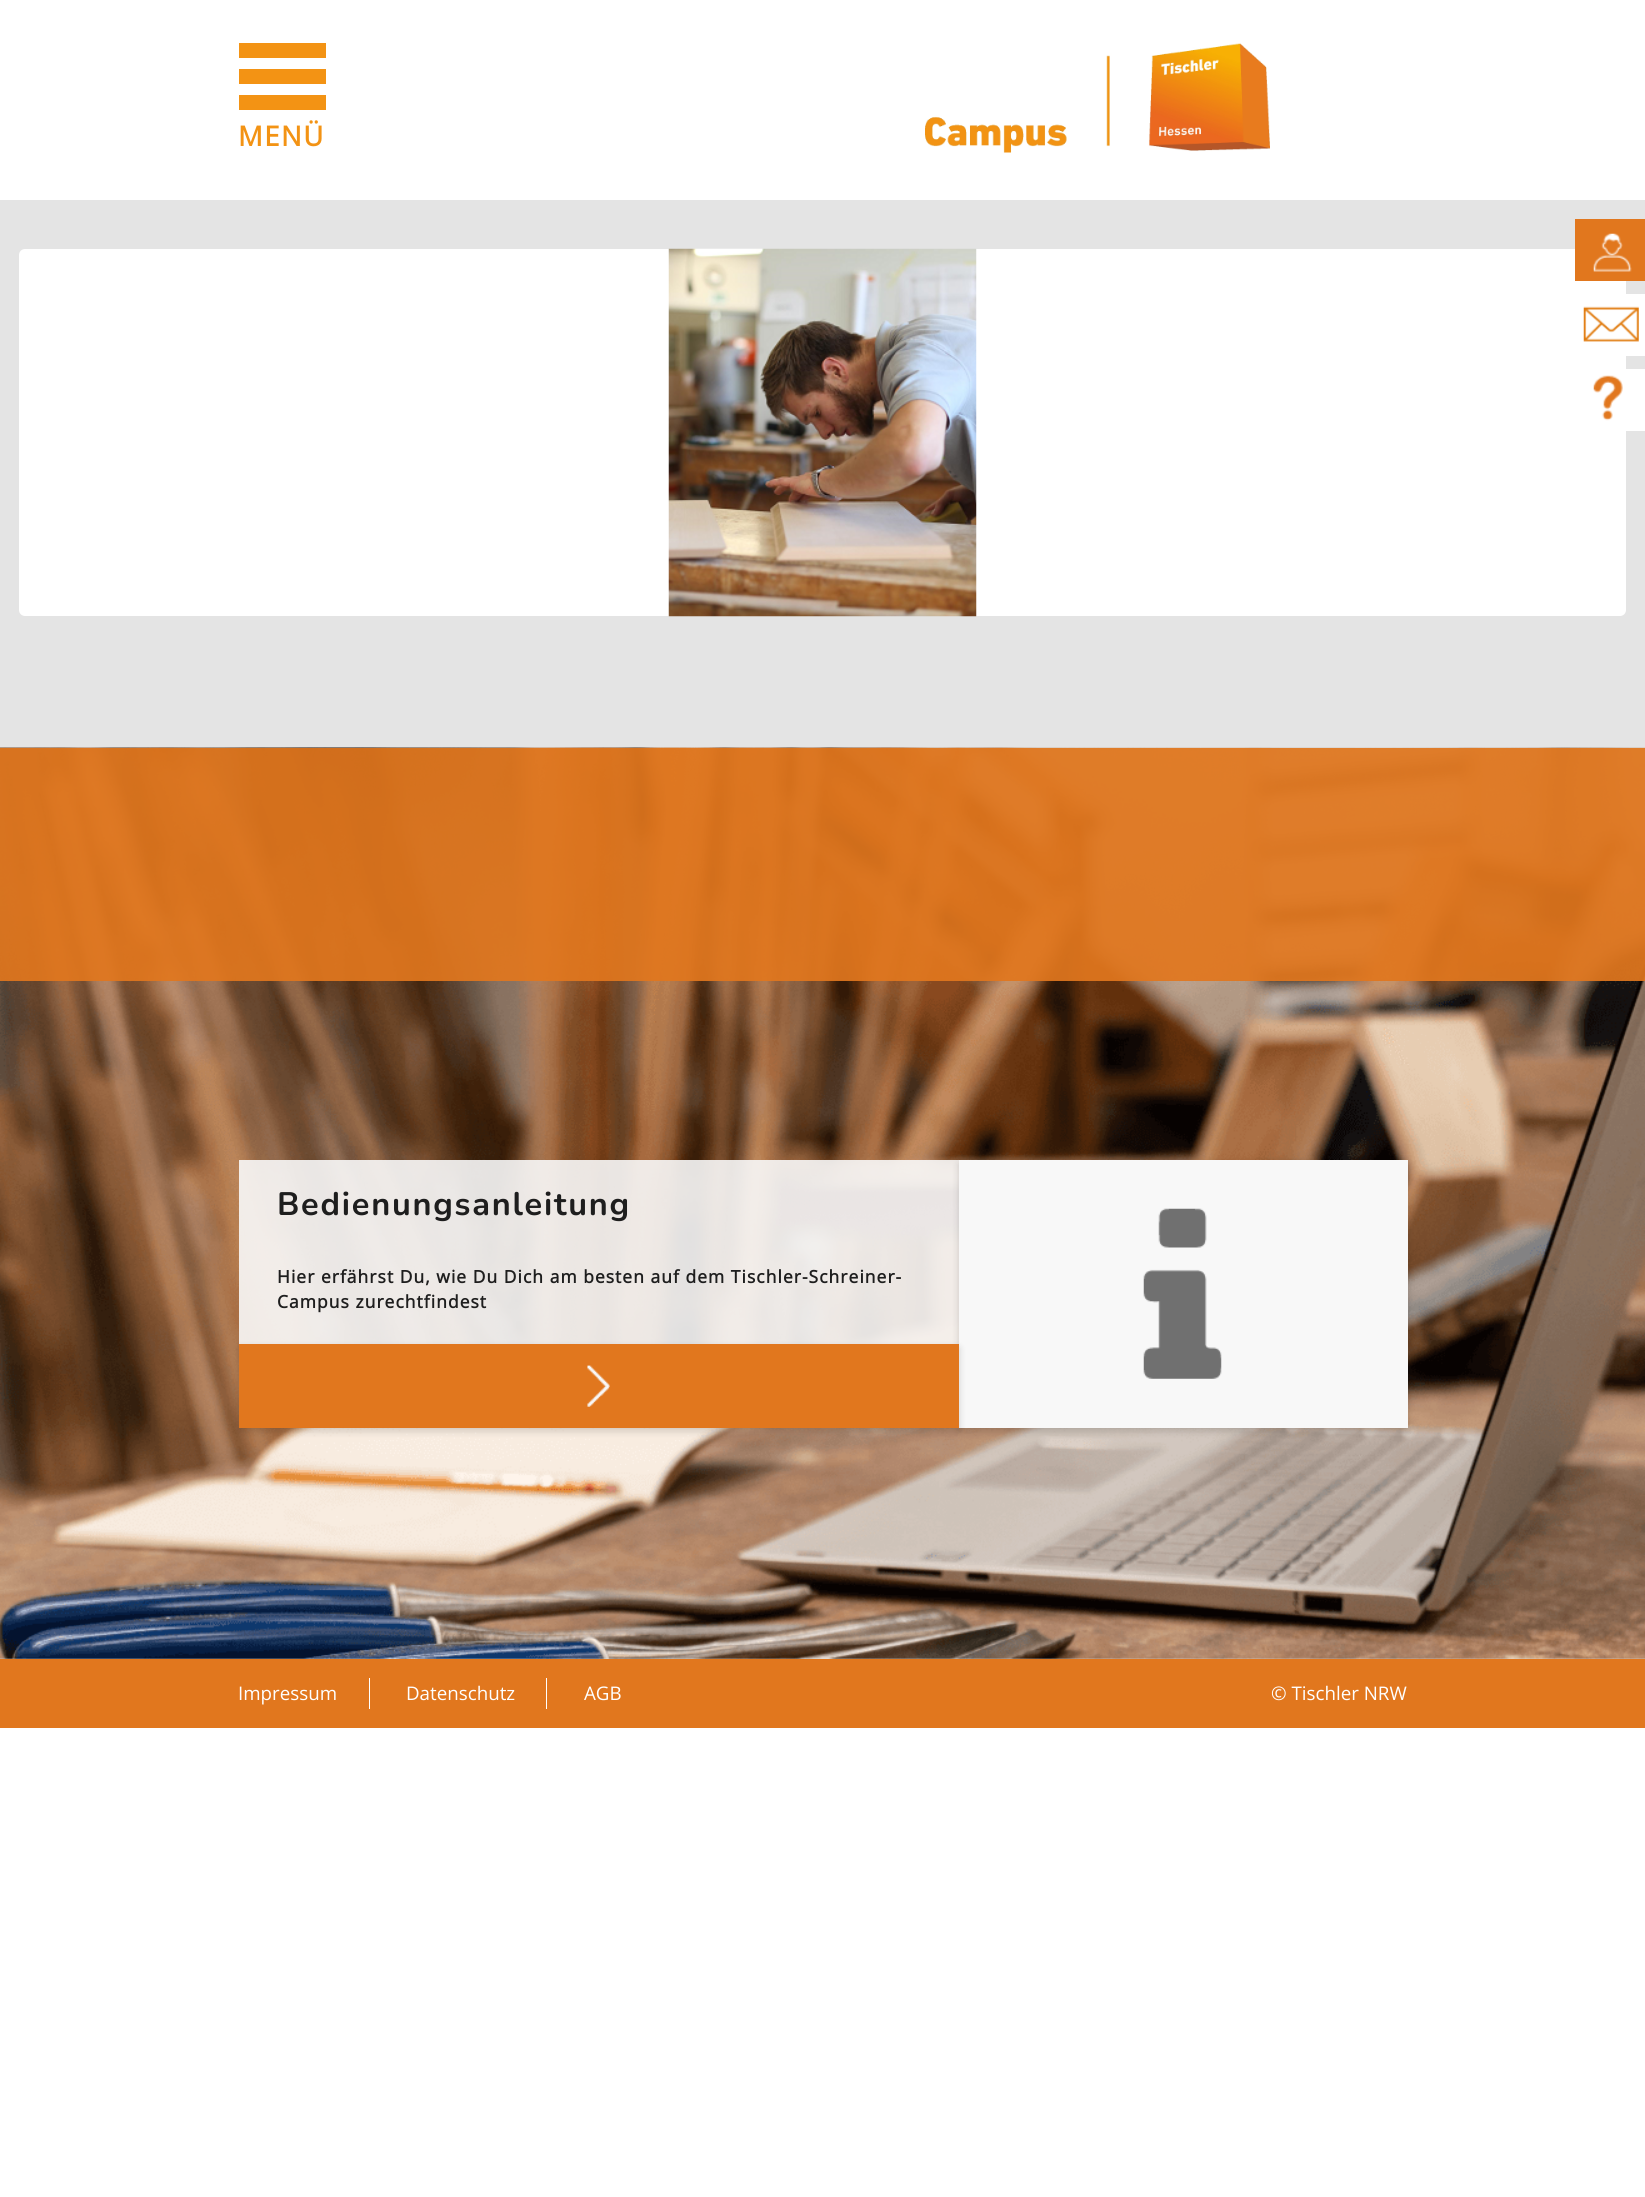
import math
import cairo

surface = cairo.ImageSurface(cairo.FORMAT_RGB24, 1645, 2197)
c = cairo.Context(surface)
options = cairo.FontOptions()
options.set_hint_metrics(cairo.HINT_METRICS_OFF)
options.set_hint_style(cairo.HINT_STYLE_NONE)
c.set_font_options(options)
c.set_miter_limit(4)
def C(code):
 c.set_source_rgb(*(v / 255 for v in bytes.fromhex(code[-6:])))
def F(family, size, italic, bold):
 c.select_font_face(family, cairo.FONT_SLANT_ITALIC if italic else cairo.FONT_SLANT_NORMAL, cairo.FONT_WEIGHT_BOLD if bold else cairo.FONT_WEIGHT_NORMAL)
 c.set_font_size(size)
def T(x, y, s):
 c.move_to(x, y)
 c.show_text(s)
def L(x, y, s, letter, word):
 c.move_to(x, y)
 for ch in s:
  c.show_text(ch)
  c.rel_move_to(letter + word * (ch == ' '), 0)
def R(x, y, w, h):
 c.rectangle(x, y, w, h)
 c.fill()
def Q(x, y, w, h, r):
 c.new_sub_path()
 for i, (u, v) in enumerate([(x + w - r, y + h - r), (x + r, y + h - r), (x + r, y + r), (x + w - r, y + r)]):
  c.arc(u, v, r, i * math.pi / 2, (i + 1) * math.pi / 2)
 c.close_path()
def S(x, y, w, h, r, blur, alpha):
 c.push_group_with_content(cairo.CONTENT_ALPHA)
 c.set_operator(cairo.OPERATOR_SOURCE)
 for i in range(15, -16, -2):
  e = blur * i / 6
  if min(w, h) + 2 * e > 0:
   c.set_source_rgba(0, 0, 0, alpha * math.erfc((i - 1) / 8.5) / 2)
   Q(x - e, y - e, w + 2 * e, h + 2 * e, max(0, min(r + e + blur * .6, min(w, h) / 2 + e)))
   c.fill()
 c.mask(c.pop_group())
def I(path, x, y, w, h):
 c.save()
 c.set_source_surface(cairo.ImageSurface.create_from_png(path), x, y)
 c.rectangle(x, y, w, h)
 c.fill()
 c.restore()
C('ffffff')
c.paint()
C('e4e4e4')
R(0,200,1645,1459)
C('f39314')
R(239,43,87,15)
R(239,69,87,15)
R(239,95,87,15)
F('Open Sans',27.5,0,1)
L(238,146,'MENÜ',1.5,0)
I('1.png',925,43,345,110)
C('ffffff')
Q(19,249,1607,367,6)
c.fill()
I('2.png',668,248,309,369)
I('3.png',24,1658,1621,1)
C('e1771e')
R(1575,219,70,62)
I('4.png',1593,233,39,39)
C('ffffff')
R(1626,294,19,62)
I('5.png',1583,306,56,36)
R(1626,369,19,62)
I('6.png',1593,375,30,46)
I('7.png',0,747,1645,912)
c.set_source_rgba(0.882,0.467,0.118,0.92)
R(0,748,1645,233)
c.set_source_rgba(0.973,0.973,0.973,0.9)
R(239,1160,720,184)
F('Nunito',32.5,0,1)
C('1e1e1e')
L(277,1215,'Bedienungsanleitung',1.75,0)
F('Open Sans',17.5,0,1)
L(277,1283,'Hier erfährst Du, wie Du Dich am besten auf dem Tischler-Schreiner-',1.02,0)
L(277,1308,'Campus zurechtfindest',1.02,0)
C('000000')
S(959,1164,449,267,0,4,.16)
C('f8f8f8')
R(959,1160,449,268)
C('000000')
S(239,1348,720,83,0,4,.16)
C('e1771e')
R(239,1344,720,84)
I('8.png',587,1365,23,42)
I('9.png',1143,1208,79,171)
R(0,1659,1645,69)
C('ffffff')
R(369,1678,1,31)
F('Open Sans',18.75,0,0)
T(238,1700,'Impressum')
R(546,1678,1,31)
T(406,1700,'Datenschutz')
T(584,1700,'AGB')
T(1271,1700,'© Tischler NRW')
surface.write_to_png('o.png')
